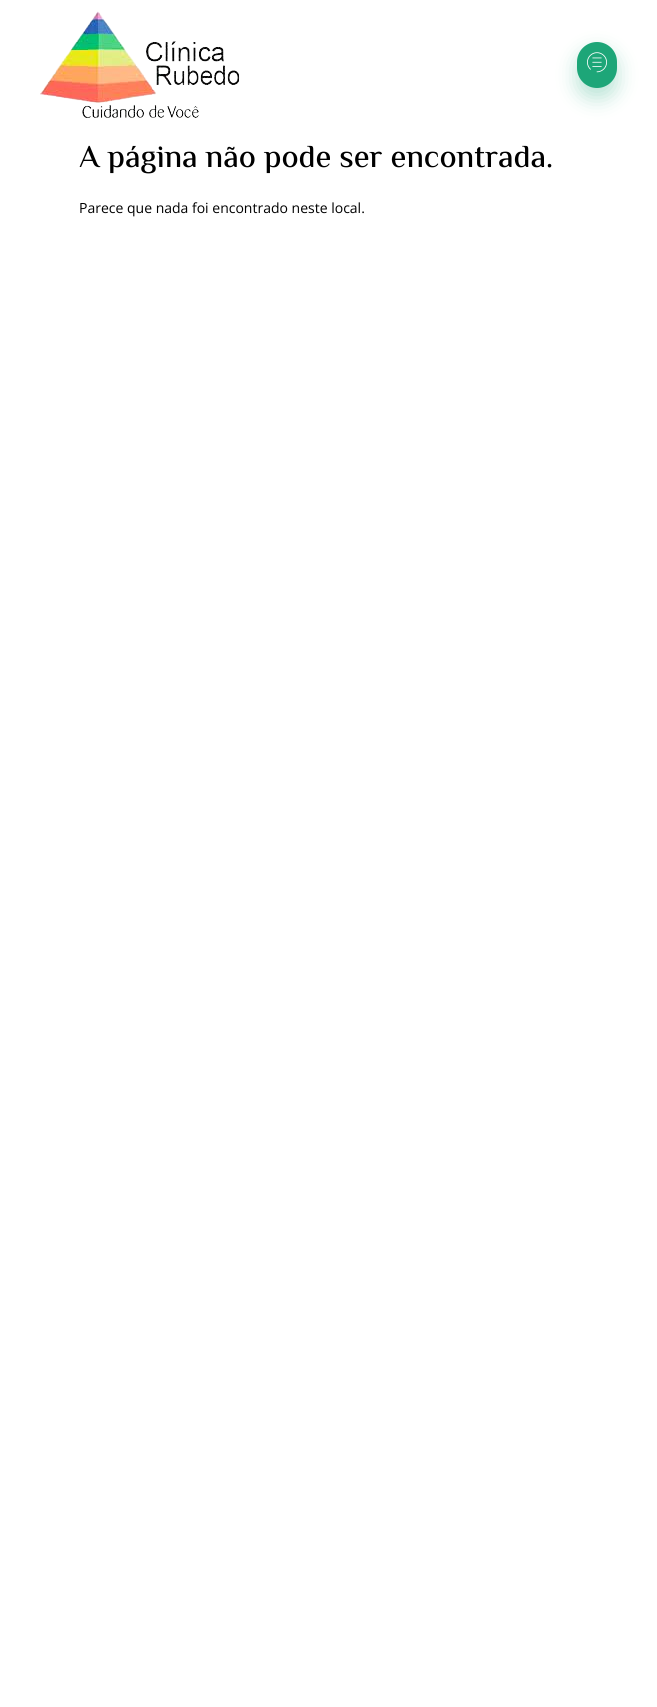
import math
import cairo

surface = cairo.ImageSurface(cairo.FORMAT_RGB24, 657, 1707)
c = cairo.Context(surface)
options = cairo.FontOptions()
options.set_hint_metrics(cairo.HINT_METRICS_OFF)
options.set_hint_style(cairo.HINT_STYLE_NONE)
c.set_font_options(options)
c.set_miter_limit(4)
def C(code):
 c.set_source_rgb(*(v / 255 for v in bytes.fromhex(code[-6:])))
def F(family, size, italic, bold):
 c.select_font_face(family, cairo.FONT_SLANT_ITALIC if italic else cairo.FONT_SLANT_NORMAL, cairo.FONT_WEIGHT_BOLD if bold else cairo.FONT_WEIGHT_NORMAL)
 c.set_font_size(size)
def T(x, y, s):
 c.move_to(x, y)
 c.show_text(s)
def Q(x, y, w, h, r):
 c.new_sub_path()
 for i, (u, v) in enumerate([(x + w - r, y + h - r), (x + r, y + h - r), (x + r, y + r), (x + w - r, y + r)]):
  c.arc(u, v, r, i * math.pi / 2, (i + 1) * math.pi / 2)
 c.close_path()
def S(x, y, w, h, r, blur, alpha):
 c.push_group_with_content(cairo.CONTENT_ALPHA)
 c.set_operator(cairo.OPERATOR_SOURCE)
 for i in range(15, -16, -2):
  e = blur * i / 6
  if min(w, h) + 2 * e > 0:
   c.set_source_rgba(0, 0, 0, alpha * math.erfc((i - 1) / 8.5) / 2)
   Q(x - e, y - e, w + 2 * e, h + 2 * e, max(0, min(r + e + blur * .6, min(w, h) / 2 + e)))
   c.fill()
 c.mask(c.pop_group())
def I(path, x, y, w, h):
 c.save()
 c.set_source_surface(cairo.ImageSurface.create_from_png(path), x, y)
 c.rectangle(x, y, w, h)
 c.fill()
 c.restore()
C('ffffff')
c.paint()
I('1.png',40,11,200,107)
C('1da678')
S(577,52,40,46,20,10,.3)
C('1da678')
Q(577,42,40,46,20)
c.fill()
I('2.png',587,52,20,21)
F('El Messiri Medium',32,0,0)
C('000000')
T(79,167,'A página não pode ser encontrada.')
F('Open Sans',14,0,0)
T(79,213,'Parece que nada foi encontrado neste local.')
surface.write_to_png('o.png')
